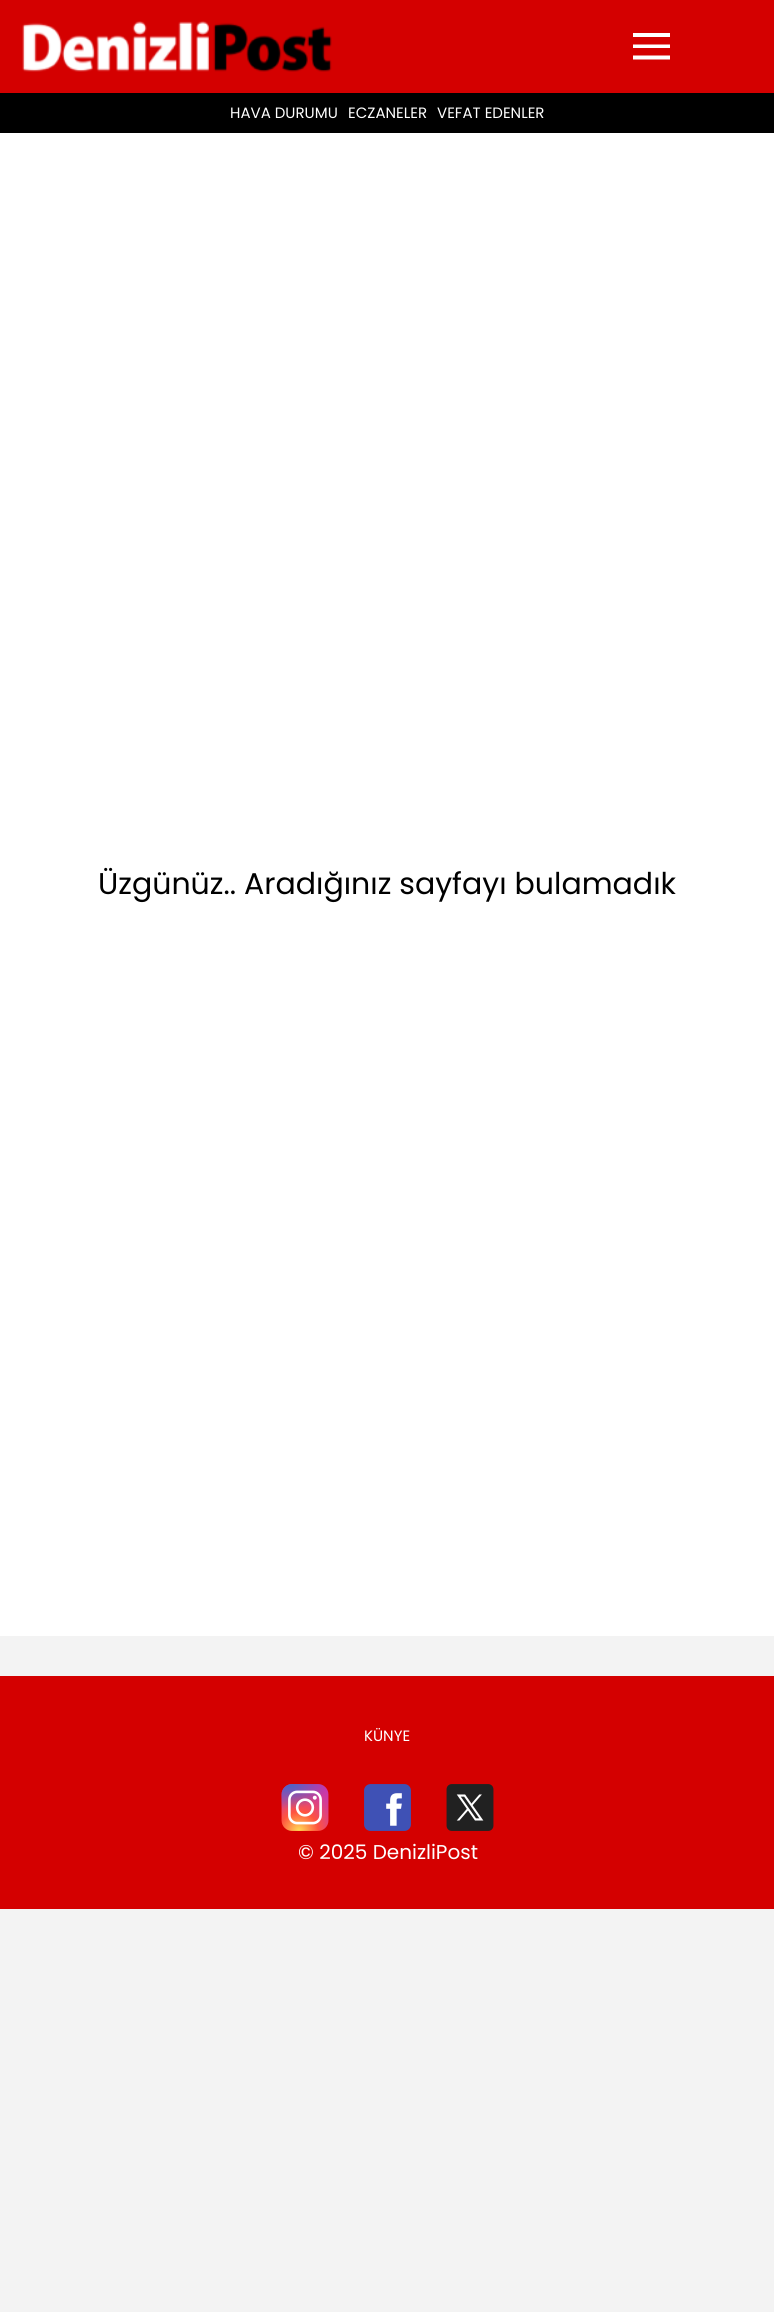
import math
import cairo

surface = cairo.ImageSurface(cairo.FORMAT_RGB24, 774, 2312)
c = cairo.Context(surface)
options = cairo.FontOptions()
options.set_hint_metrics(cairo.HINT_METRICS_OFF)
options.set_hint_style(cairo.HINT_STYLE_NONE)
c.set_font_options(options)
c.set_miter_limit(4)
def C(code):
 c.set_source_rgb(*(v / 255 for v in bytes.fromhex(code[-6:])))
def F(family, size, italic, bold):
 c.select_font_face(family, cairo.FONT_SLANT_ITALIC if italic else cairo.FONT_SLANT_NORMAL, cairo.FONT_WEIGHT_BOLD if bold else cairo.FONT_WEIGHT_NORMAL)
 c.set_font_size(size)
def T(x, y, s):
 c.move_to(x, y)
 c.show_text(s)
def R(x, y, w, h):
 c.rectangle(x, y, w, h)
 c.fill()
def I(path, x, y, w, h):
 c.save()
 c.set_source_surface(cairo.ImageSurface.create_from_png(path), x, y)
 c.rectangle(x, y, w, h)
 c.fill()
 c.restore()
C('f3f3f3')
c.paint()
C('d40000')
R(0,0,774,93)
I('1.png',22,21,310,51)
c.save()
c.rectangle(633,28,37,37)
c.clip()
C('ffffff')
c.new_path()
c.move_to(632.5,33)
c.line_to(632.5,37)
c.line_to(670,37)
c.line_to(670,33)
c.close_path()
c.move_to(632.5,44.5)
c.line_to(632.5,48)
c.line_to(670,48)
c.line_to(670,44.5)
c.close_path()
c.move_to(632.5,55.5)
c.line_to(632.5,59.5)
c.line_to(670,59.5)
c.line_to(670,55.5)
c.close_path()
c.fill()
c.restore()
C('000000')
R(0,93,774,40)
F('Poppins',15,0,0)
C('ffffff')
T(230,118,'HAVA DURUMU')
T(348,118,'ECZANELER')
T(437,118,'VEFAT EDENLER')
R(0,133,774,1503)
F('Poppins',30,0,0)
C('000000')
T(98,894,'Üzgünüz.. Aradığınız sayfayı bulamadık')
C('d40000')
R(0,1676,774,233)
F('Poppins',15,0,0)
C('ffffff')
T(364,1741,'KÜNYE')
I('2.png',281,1784,48,47)
I('3.png',364,1784,47,47)
I('4.png',446,1784,48,47)
F('Poppins',20,0,0)
T(298,1859,'© 2025 DenizliPost')
surface.write_to_png('o.png')
